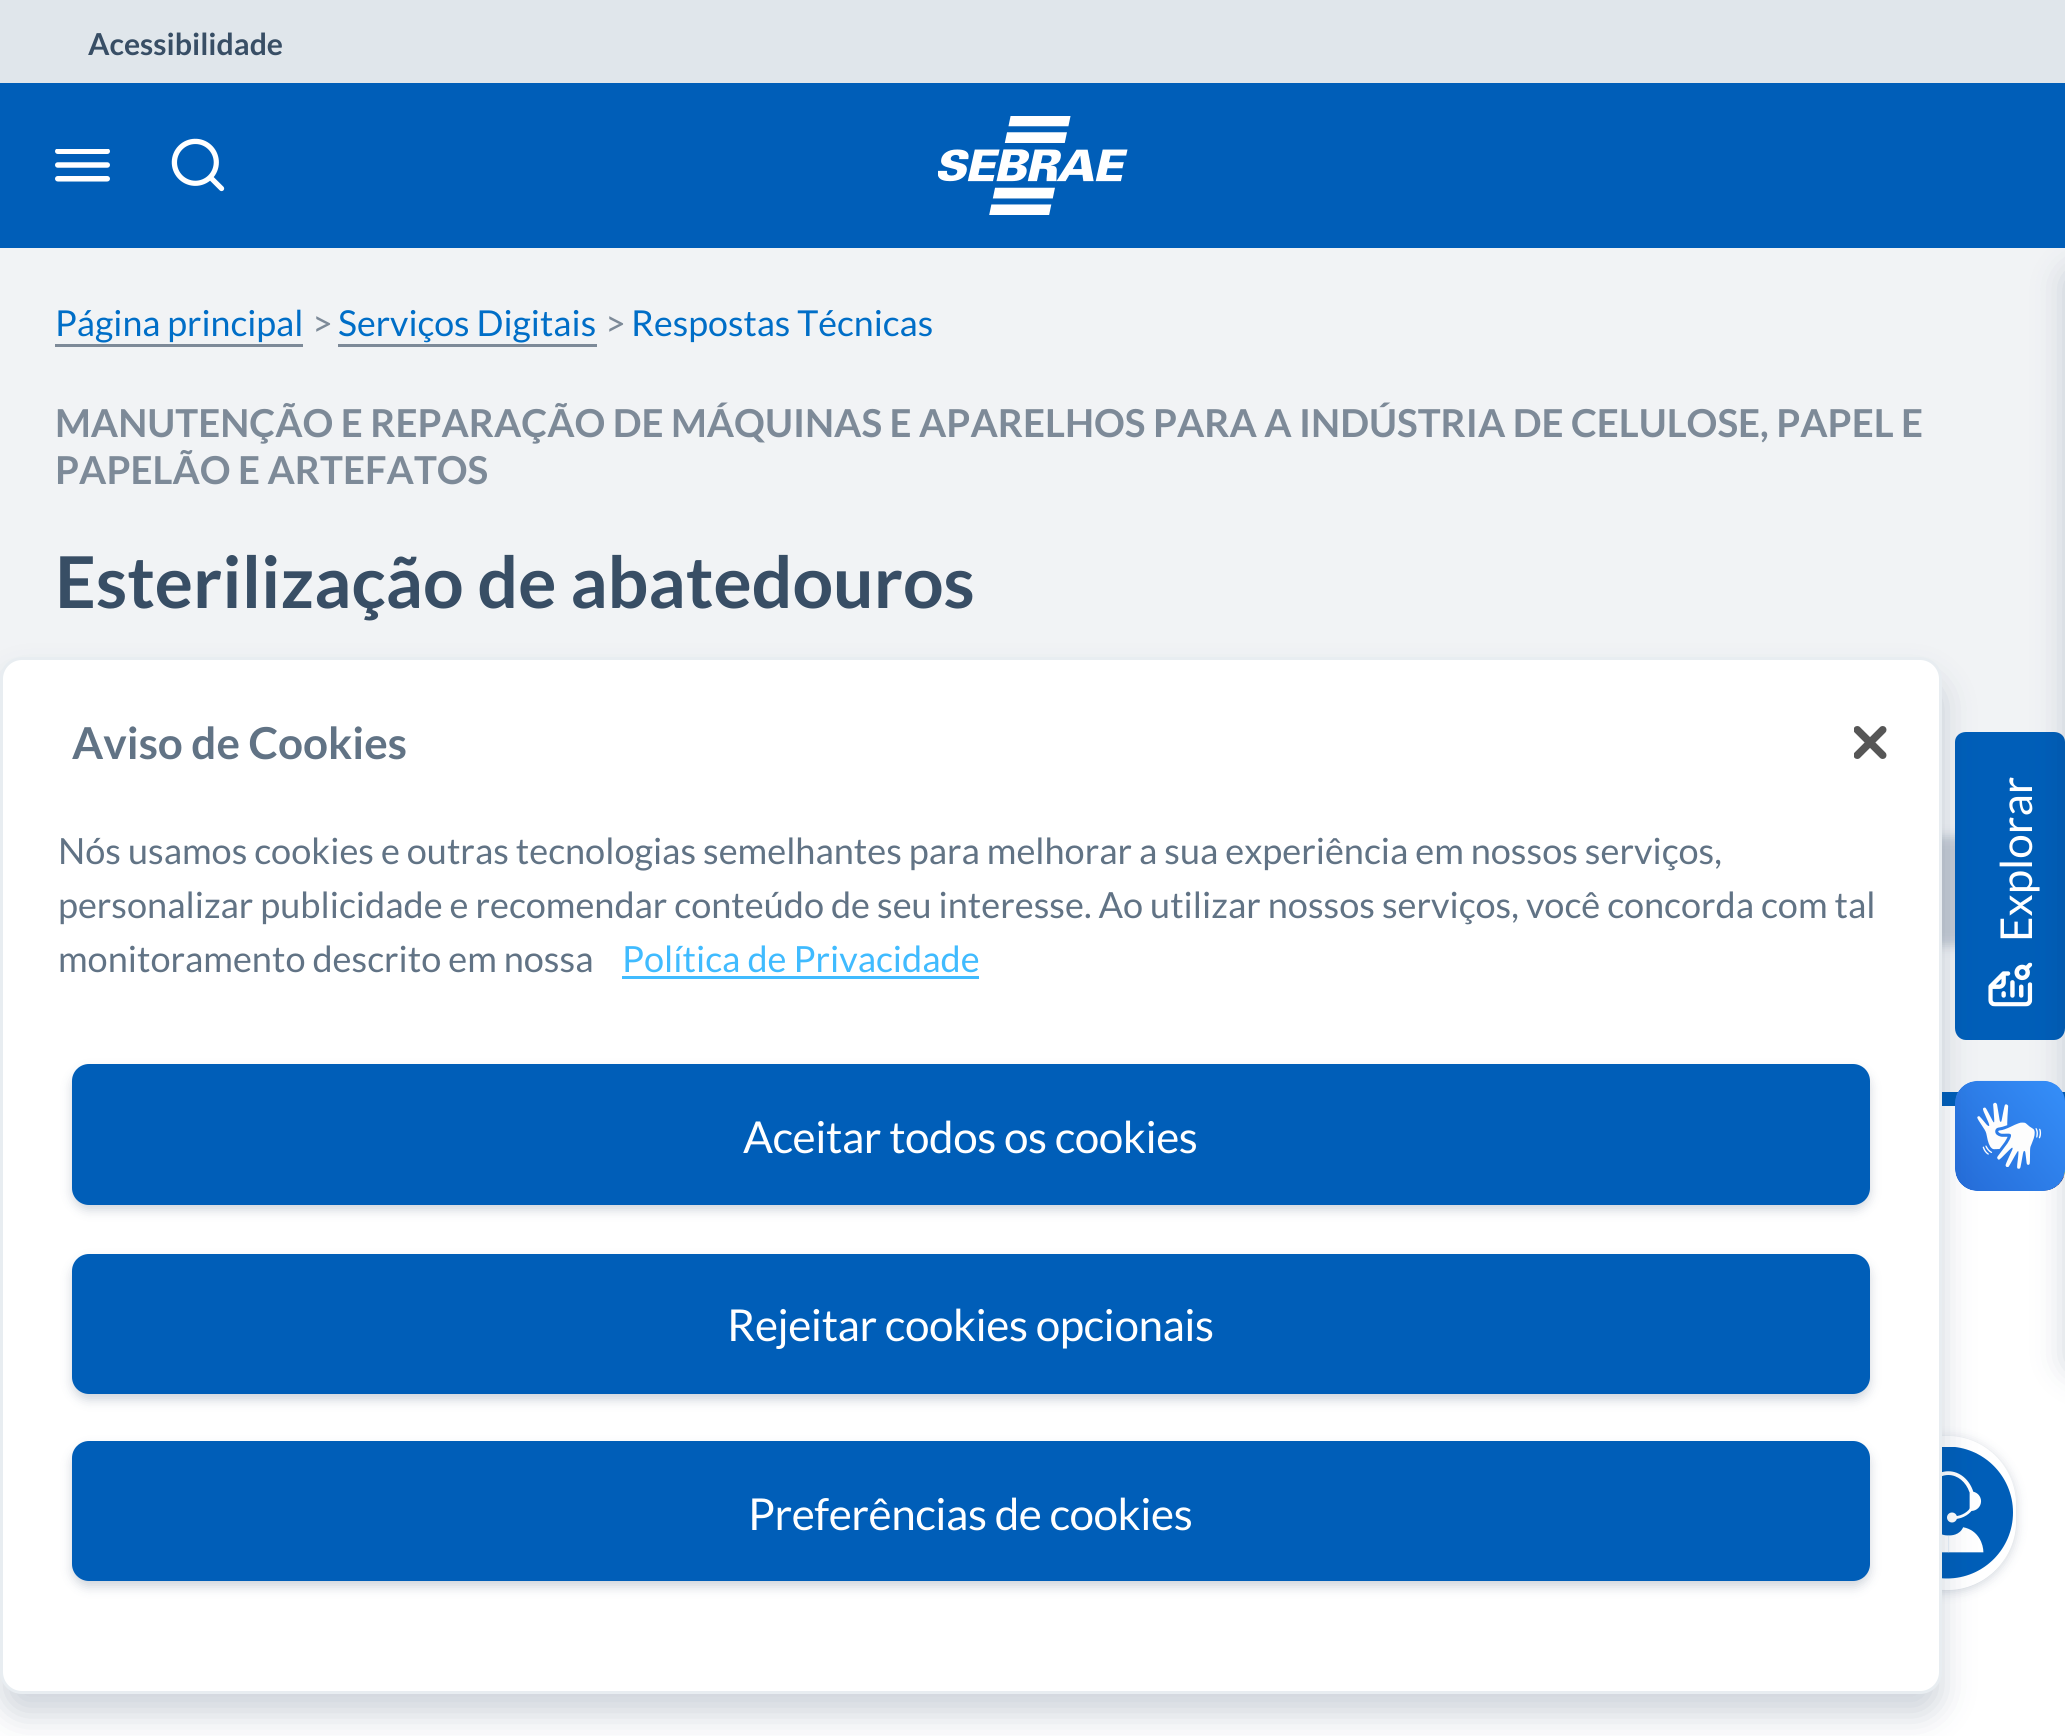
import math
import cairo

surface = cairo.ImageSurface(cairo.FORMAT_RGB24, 2065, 1736)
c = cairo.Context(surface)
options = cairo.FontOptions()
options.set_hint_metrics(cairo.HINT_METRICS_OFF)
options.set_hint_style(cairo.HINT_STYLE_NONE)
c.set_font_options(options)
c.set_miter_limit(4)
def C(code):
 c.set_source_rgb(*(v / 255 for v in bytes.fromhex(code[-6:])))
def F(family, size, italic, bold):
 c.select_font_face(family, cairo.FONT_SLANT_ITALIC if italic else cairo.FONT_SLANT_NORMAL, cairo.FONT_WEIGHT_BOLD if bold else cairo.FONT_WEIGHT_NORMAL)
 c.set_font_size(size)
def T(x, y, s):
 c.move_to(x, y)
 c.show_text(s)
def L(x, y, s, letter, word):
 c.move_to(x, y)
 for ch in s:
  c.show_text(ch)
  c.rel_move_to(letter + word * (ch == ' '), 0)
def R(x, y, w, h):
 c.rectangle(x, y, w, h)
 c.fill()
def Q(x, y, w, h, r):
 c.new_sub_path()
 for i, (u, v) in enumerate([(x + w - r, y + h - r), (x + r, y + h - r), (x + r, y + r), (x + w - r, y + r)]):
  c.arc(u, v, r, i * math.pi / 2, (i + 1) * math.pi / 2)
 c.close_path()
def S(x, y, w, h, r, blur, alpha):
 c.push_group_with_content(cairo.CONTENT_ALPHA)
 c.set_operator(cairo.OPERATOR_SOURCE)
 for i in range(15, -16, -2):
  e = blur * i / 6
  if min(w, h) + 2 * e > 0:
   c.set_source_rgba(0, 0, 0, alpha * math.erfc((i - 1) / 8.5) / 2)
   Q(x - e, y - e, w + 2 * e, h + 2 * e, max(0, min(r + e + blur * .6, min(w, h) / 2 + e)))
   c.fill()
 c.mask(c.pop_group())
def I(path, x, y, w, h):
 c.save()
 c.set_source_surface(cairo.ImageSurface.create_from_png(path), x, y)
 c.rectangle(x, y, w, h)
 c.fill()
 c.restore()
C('ffffff')
c.paint()
C('005eb8')
R(0,83,2065,165)
C('e0e6eb')
R(0,0,2065,83)
F('Lato',30.25,0,1)
C('384e65')
T(88,55,'Acessibilidade')
I('1.png',938,116,190,99)
I('2.png',55,149,55,33)
I('3.png',171,138,54,54)
C('f1f3f5')
R(0,248,2065,844)
C('005eb8')
R(1942,1092,123,14)
C('142e52')
S(1856,836,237,110,11,5.5,.2)
C('005eb8')
c.new_path()
c.move_to(1955,1028)
c.line_to(1955,742)
c.curve_to(1955,736,1960,732,1966,732)
c.line_to(2054,732)
c.curve_to(2060,732,2065,736,2065,742)
c.line_to(2065,1028)
c.curve_to(2065,1035,2060,1040,2054,1040)
c.line_to(1966,1040)
c.curve_to(1960,1040,1955,1035,1955,1028)
c.close_path()
c.fill()
I('4.png',1988,962,45,45)
C('142e52')
S(2065,270,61,1102,11,16.5,.2)
F('Lato',35.75,0,0)
C('006ec7')
T(55,336,'Página principal')
C('7d8a98')
R(55,344,248,3)
T(312,336,'>')
C('006ec7')
T(338,336,'Serviços Digitais')
C('7d8a98')
R(338,344,259,3)
T(605,336,'>')
C('006ec7')
T(631,336,'Respostas Técnicas')
F('Lato',38.5,0,1)
C('7d8a98')
T(55,437,'MANUTENÇÃO E REPARAÇÃO DE MÁQUINAS E APARELHOS PARA A INDÚSTRIA DE CELULOSE, PAPEL E')
T(55,484,'PAPELÃO E ARTEFATOS')
F('Lato',71.5,0,1)
C('384e65')
T(55,608,'Esterilização de abatedouros')
F('Lato',44,0,0)
C('ffffff')
c.save()
c.translate(2032,942)
c.rotate(-90 * math.pi / 180)
T(0,0,'Explorar')
c.restore()
I('6.png',1955,1080,110,111)
I('7.png',1955,1081,110,110)
c.save()
c.set_fill_rule(cairo.FILL_RULE_EVEN_ODD)
c.new_path()
c.move_to(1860,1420)
c.line_to(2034,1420)
c.line_to(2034,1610)
c.line_to(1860,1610)
c.close_path()
c.move_to(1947,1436)
c.curve_to(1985,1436,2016,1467,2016,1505)
c.line_to(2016,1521)
c.curve_to(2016,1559,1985,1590,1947,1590)
c.curve_to(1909,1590,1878,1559,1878,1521)
c.line_to(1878,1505)
c.curve_to(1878,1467,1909,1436,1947,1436)
c.close_path()
c.clip()
C('142e52')
S(1878,1438,138,154,69,5.5,.2)
c.restore()
I('8.png',1942,1447,71,132)
C('142e52')
S(0,679,1942,1037,22,16.5,.2)
C('ffffff')
Q(1.5,658.5,1939,1034,20.5)
c.fill_preserve()
C('e8edf1')
c.set_line_width(3)
c.stroke()
F('Lato',44,0,1)
C('617385')
T(72,759,'Aviso de Cookies')
F('Lato',36.08,0,0)
T(58,864,'Nós usamos cookies e outras tecnologias semelhantes para melhorar a sua experiência em nossos serviços,')
T(58,918,'personalizar publicidade e recomendar conteúdo de seu interesse. Ao utilizar nossos serviços, você concorda com tal')
T(58,972,'monitoramento descrito em nossa')
C('40bbff')
T(622,972,'Política de Privacidade')
R(622,976,357,3)
I('5.png',1854,726,33,33)
C('142e52')
S(72,1070,1798,140,17,5.5,.2)
C('005eb8')
Q(72,1064,1798,141,17)
c.fill()
F('Lato',44,0,0)
C('ffffff')
L(743,1153,'Aceitar todos os cookies',-.45,0)
C('142e52')
S(72,1260,1798,140,17,5.5,.2)
C('005eb8')
Q(72,1254,1798,140,17)
c.fill()
C('ffffff')
L(727,1341,'Rejeitar cookies opcionais',-.45,0)
C('142e52')
S(72,1447,1798,140,17,5.5,.2)
C('005eb8')
Q(72,1441,1798,140,17)
c.fill()
C('ffffff')
L(748,1530,'Preferências de cookies',-.45,0)
surface.write_to_png('o.png')
